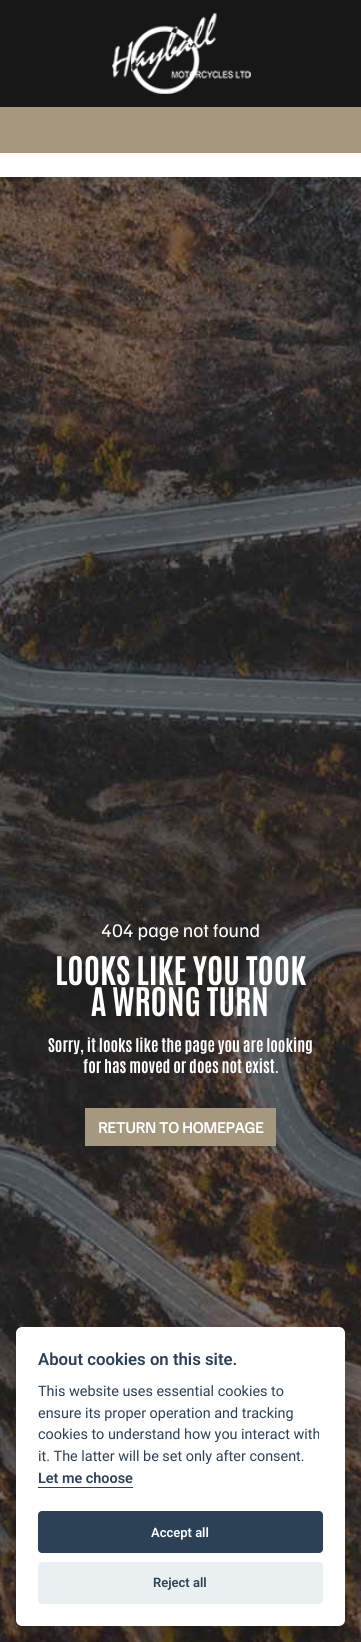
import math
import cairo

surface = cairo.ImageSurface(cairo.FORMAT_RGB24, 361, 1642)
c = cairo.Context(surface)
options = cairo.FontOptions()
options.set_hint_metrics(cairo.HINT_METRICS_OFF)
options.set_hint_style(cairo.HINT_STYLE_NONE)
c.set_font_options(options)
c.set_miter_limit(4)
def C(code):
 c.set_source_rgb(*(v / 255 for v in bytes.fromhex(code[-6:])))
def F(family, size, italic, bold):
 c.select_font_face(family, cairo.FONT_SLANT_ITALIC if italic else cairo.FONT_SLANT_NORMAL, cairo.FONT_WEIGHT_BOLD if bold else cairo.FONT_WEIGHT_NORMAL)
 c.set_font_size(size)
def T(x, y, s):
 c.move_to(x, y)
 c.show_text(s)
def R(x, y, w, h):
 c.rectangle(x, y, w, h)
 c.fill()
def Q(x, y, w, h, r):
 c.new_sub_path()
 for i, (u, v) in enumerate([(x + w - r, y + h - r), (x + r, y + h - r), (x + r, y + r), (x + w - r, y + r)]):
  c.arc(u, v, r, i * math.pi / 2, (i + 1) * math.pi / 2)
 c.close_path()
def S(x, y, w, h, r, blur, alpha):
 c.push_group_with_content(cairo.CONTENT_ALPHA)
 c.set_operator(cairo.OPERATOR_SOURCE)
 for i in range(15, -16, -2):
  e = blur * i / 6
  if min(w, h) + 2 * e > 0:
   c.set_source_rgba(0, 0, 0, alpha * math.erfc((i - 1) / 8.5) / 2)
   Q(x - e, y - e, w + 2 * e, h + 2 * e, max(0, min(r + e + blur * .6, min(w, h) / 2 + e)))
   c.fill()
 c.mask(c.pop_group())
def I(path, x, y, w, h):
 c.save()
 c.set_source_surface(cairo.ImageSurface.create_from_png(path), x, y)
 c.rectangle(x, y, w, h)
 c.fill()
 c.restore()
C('ffffff')
c.paint()
C('171717')
R(0,0,361,107)
I('1.png',112,13,139,81)
C('a6987e')
R(0,107,361,46)
I('2.png',0,177,361,1465)
F('Familjen Grotesk',19.25,0,0)
C('ffffff')
T(101,937,'404 page not found')
F('Antonio',33.5,0,1)
T(55,985,'LOOKS LIKE YOU TOOK')
T(91,1016,'A WRONG TURN')
F('Antonio',16,0,1)
T(48,1052,'Sorry, it looks like the page you are looking')
T(83,1073,'for has moved or does not exist.')
C('a6987e')
R(85,1108,191,38)
F('Familjen Grotesk',16,0,1)
C('ffffff')
T(98,1133,'RETURN TO HOMEPAGE')
C('020203')
S(16,1337,329,299,6,15,.28)
C('ffffff')
Q(16,1327,329,299,6)
c.fill()
F('Roboto SemiBold',16.75,0,0)
C('2d4156')
T(38,1365,'About cookies on this site.')
F('Roboto',14.4,0,0)
T(38,1396,'This website uses essential cookies to')
T(38,1418,'ensure its proper operation and tracking')
T(38,1439,'cookies to understand how you interact with')
T(38,1461,'it. The latter will be set only after consent.')
F('Roboto SemiBold',14.4,0,0)
T(38,1483,'Let me choose')
R(38,1487,95,1)
Q(38,1511,285,42,4)
c.fill()
F('Roboto SemiBold',13,0,0)
C('ffffff')
T(151,1537,'Accept all')
C('eaeff2')
Q(38,1562,285,42,4)
c.fill()
C('2d4156')
T(153,1587,'Reject all')
surface.write_to_png('o.png')
